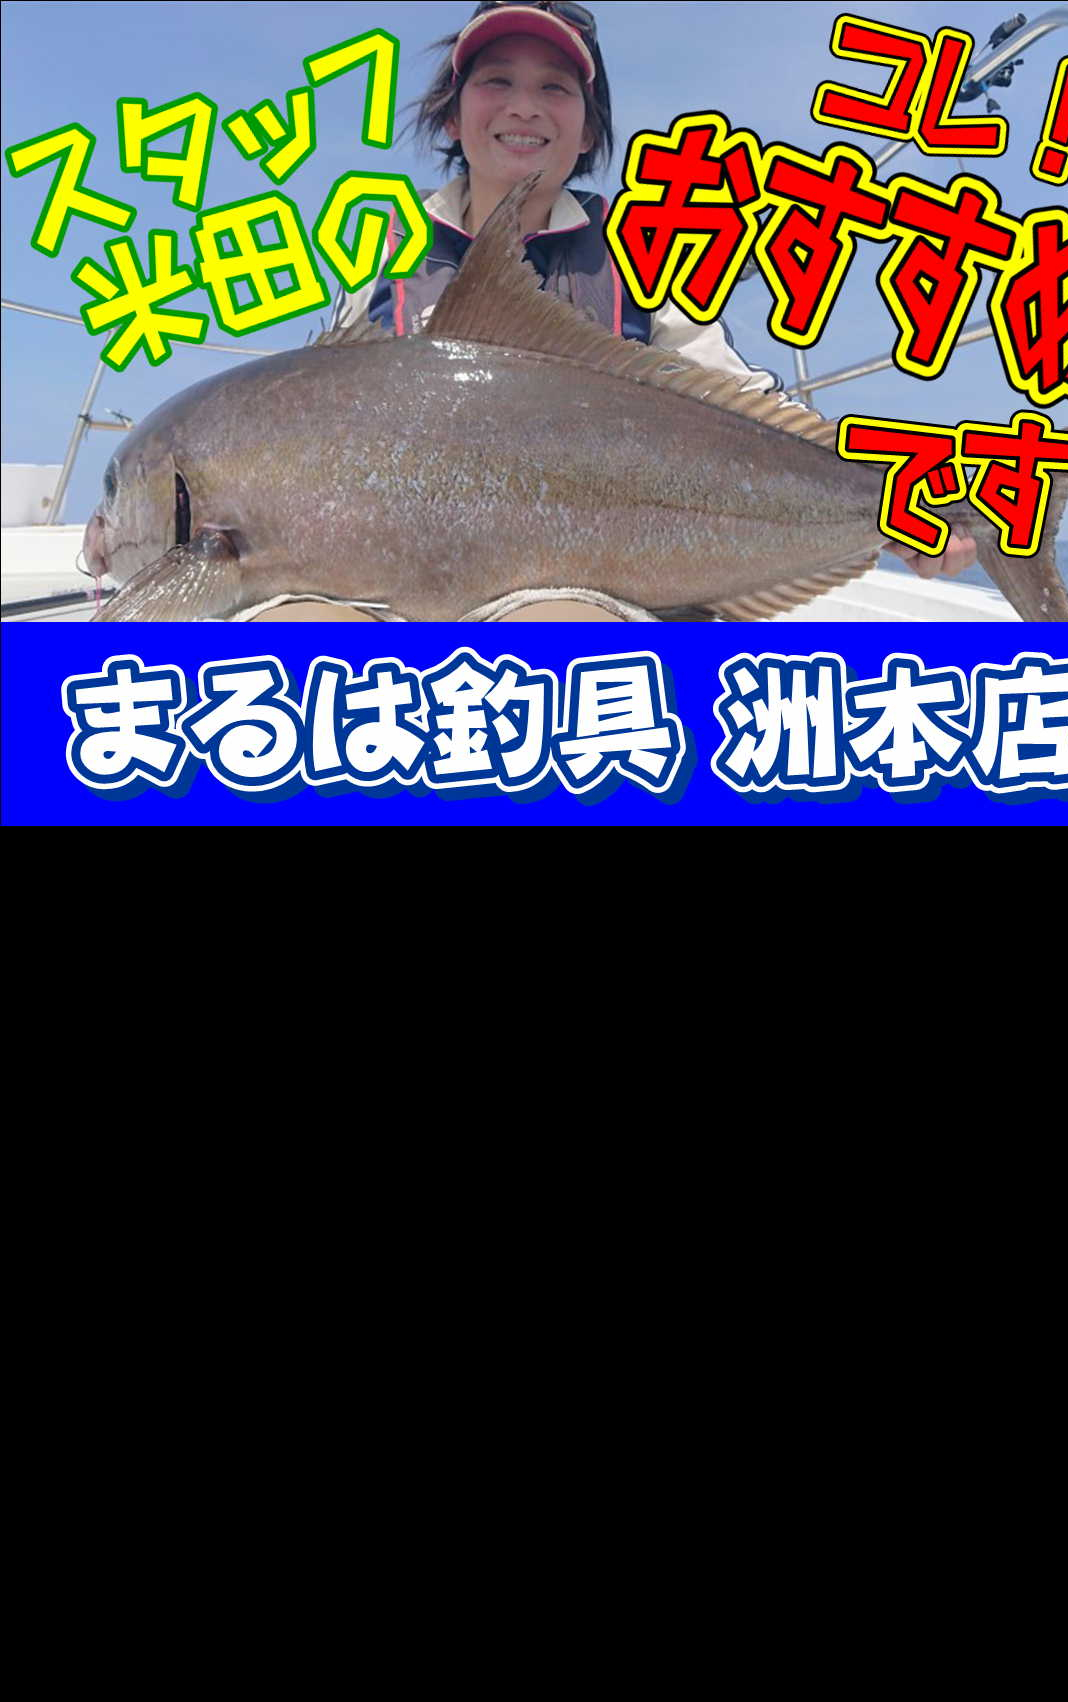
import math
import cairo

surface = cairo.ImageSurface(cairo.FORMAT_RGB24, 1068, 1702)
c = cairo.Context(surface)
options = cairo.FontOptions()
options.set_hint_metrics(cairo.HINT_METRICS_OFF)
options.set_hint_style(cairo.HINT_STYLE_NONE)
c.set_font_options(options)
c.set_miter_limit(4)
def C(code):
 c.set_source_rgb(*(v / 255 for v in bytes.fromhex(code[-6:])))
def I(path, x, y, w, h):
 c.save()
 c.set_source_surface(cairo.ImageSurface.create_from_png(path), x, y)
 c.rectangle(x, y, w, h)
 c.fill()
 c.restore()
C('000000')
c.paint()
I('1.png',0,0,1068,827)
surface.write_to_png('o.png')
